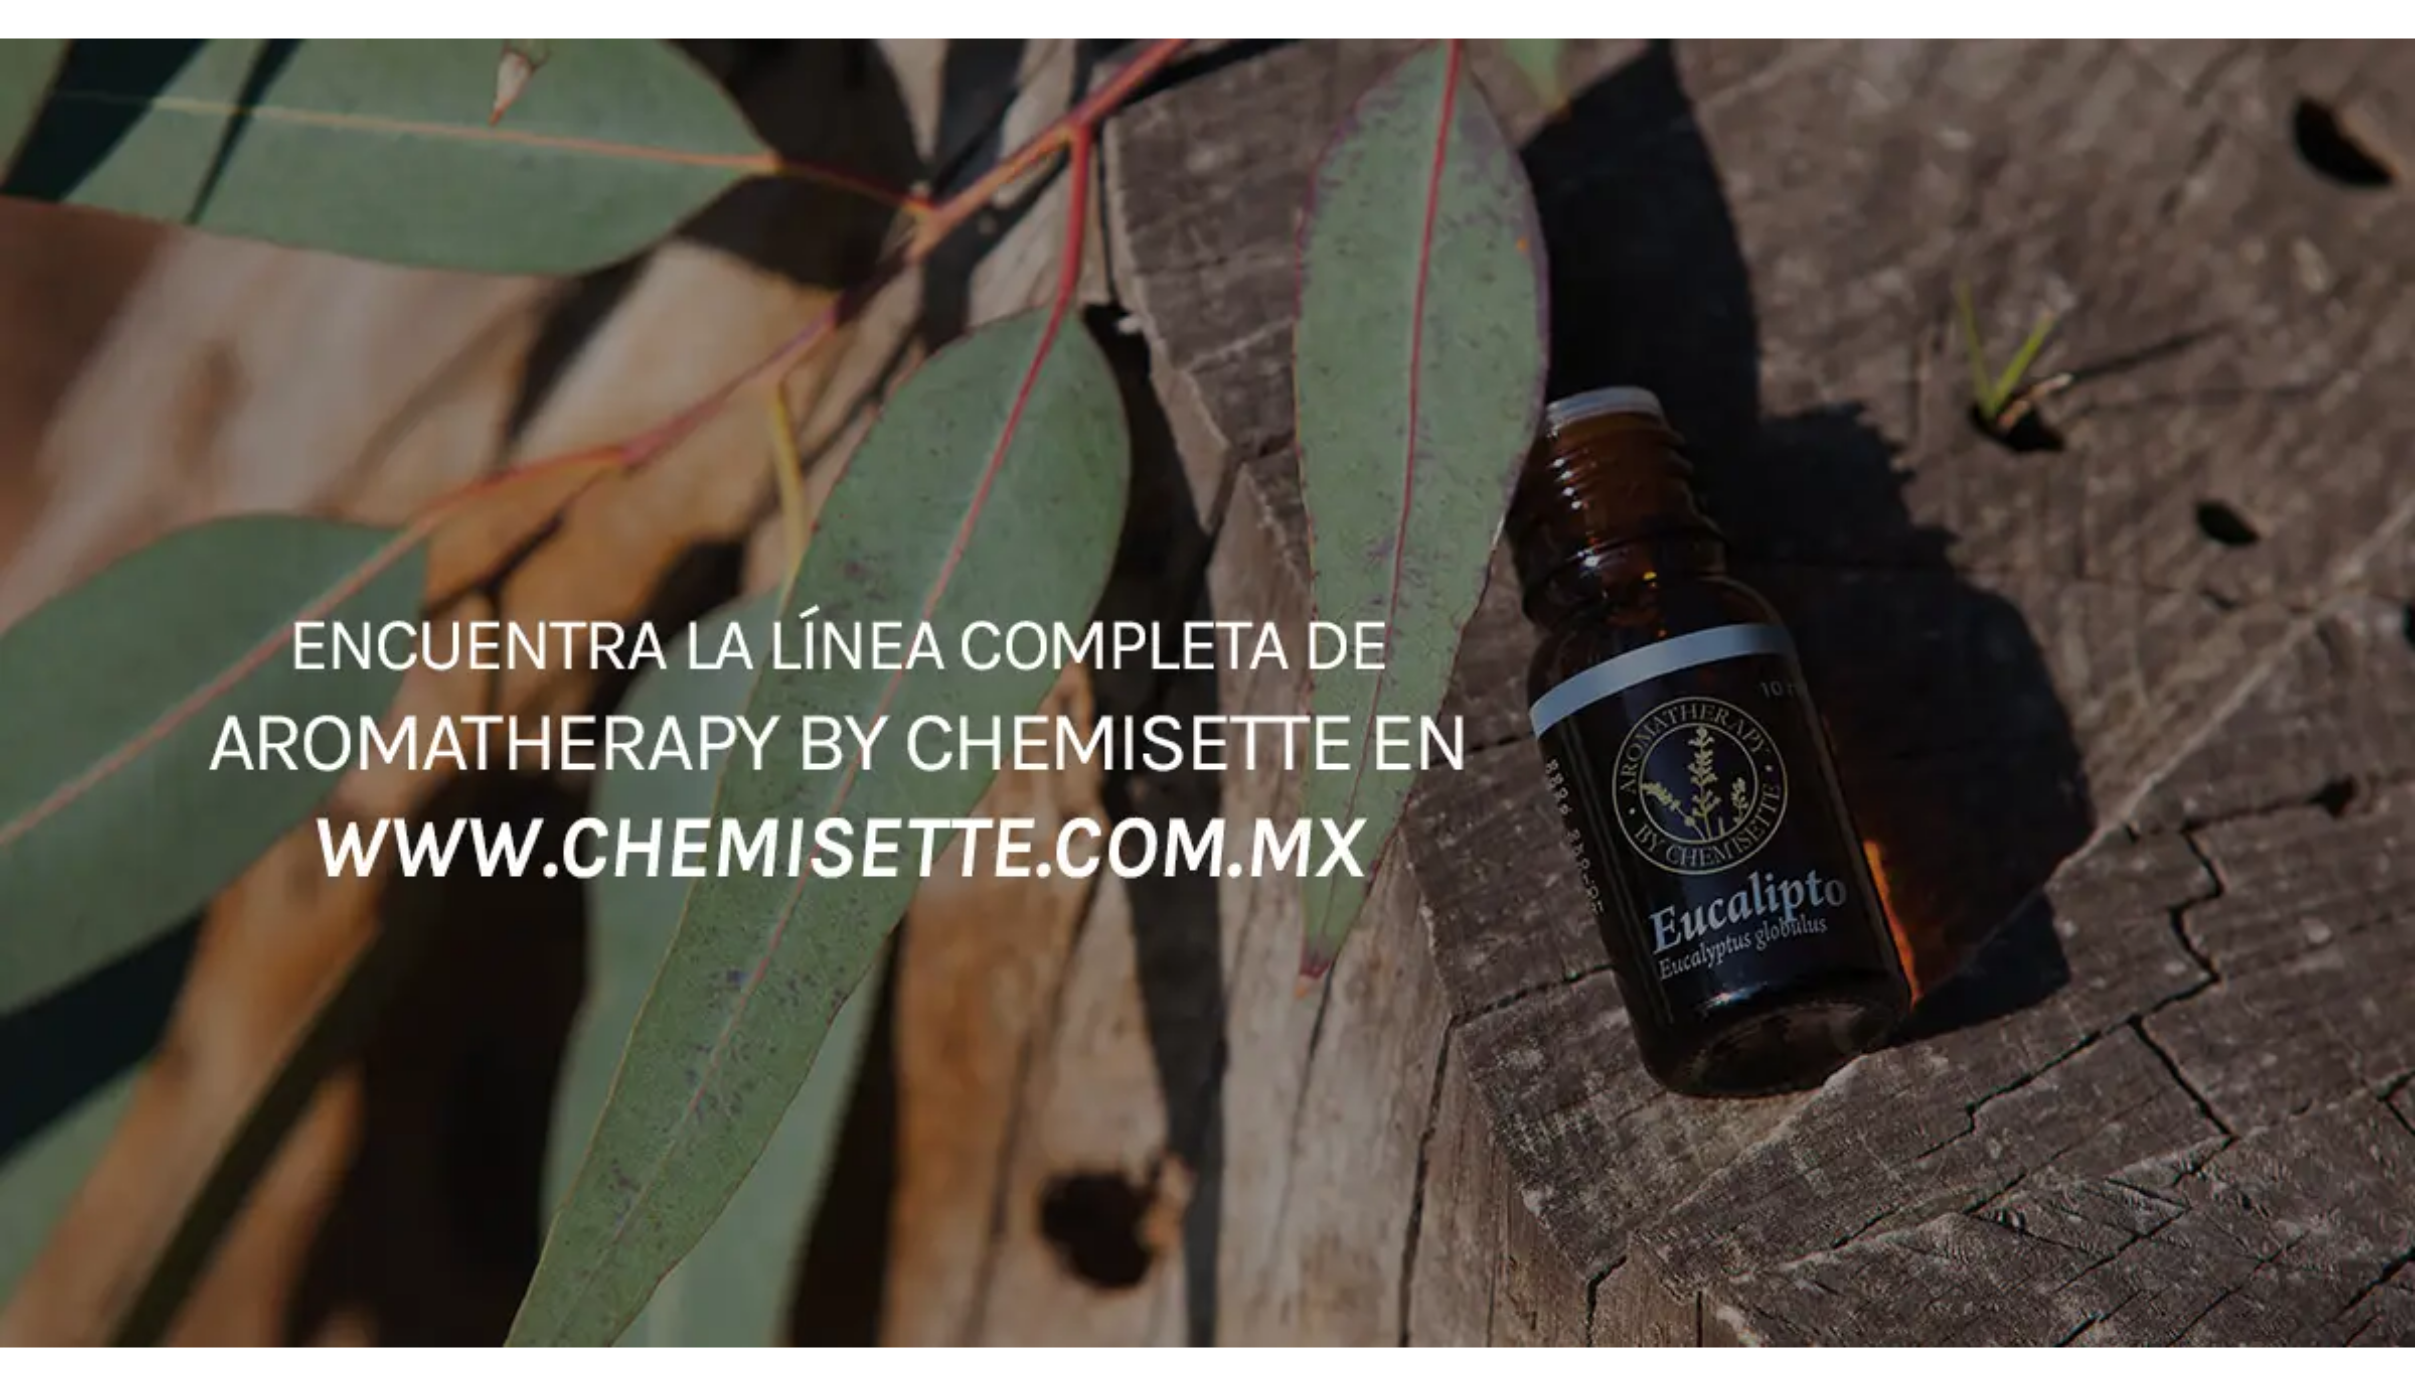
import math
import cairo

surface = cairo.ImageSurface(cairo.FORMAT_RGB24, 2415, 1383)
c = cairo.Context(surface)
options = cairo.FontOptions()
options.set_hint_metrics(cairo.HINT_METRICS_OFF)
options.set_hint_style(cairo.HINT_STYLE_NONE)
c.set_font_options(options)
c.set_miter_limit(4)
def C(code):
 c.set_source_rgb(*(v / 255 for v in bytes.fromhex(code[-6:])))
def I(path, x, y, w, h):
 c.save()
 c.set_source_surface(cairo.ImageSurface.create_from_png(path), x, y)
 c.rectangle(x, y, w, h)
 c.fill()
 c.restore()
C('ffffff')
c.paint()
I('1.png',0,38,2415,1310)
surface.write_to_png('o.png')
